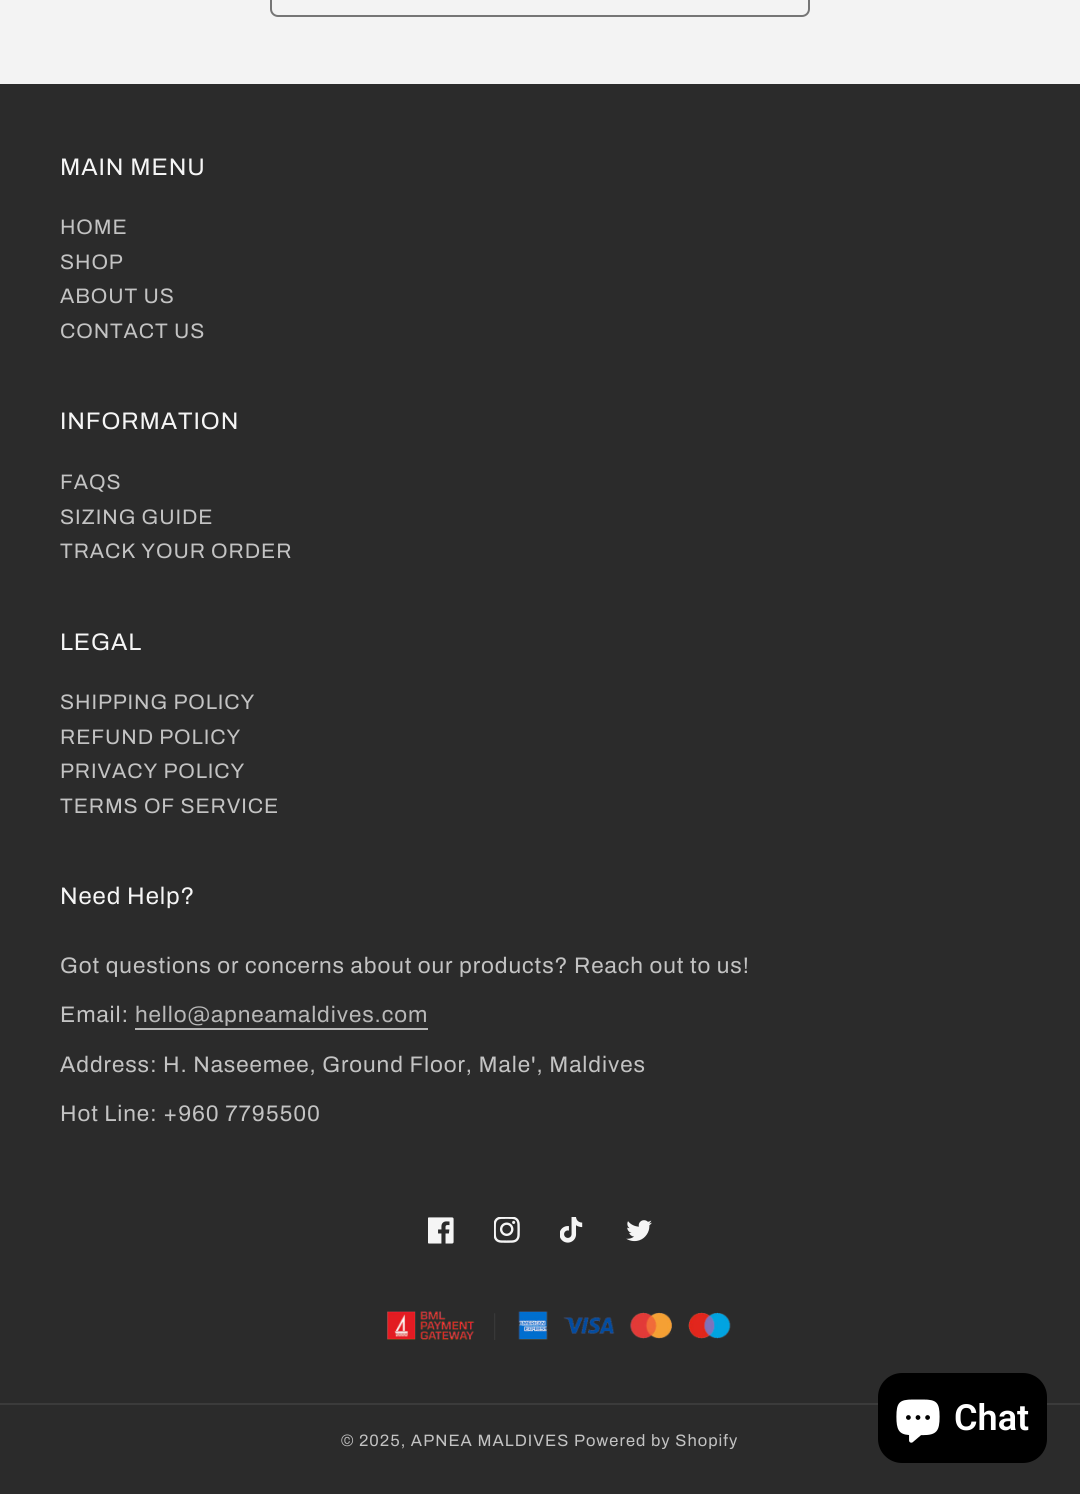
import math
import cairo

surface = cairo.ImageSurface(cairo.FORMAT_RGB24, 1080, 1494)
c = cairo.Context(surface)
options = cairo.FontOptions()
options.set_hint_metrics(cairo.HINT_METRICS_OFF)
options.set_hint_style(cairo.HINT_STYLE_NONE)
c.set_font_options(options)
c.set_miter_limit(4)
def C(code):
 c.set_source_rgb(*(v / 255 for v in bytes.fromhex(code[-6:])))
def F(family, size, italic, bold):
 c.select_font_face(family, cairo.FONT_SLANT_ITALIC if italic else cairo.FONT_SLANT_NORMAL, cairo.FONT_WEIGHT_BOLD if bold else cairo.FONT_WEIGHT_NORMAL)
 c.set_font_size(size)
def T(x, y, s):
 c.move_to(x, y)
 c.show_text(s)
def L(x, y, s, letter, word):
 c.move_to(x, y)
 for ch in s:
  c.show_text(ch)
  c.rel_move_to(letter + word * (ch == ' '), 0)
def R(x, y, w, h):
 c.rectangle(x, y, w, h)
 c.fill()
def Q(x, y, w, h, r):
 c.new_sub_path()
 for i, (u, v) in enumerate([(x + w - r, y + h - r), (x + r, y + h - r), (x + r, y + r), (x + w - r, y + r)]):
  c.arc(u, v, r, i * math.pi / 2, (i + 1) * math.pi / 2)
 c.close_path()
def I(path, x, y, w, h):
 c.save()
 c.set_source_surface(cairo.ImageSurface.create_from_png(path), x, y)
 c.rectangle(x, y, w, h)
 c.fill()
 c.restore()
C('2b2b2b')
c.paint()
C('f3f3f3')
R(0,0,1080,84)
Q(271,-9,538,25,7)
C('757575')
c.stroke()
F('Archivo',24,0,0)
C('f5f5f5')
L(60,175,'MAIN MENU',.9,0)
F('Archivo',21,0,0)
C('c3c3c3')
L(60,234,'HOME',.9,0)
L(60,269,'SHOP',.9,0)
L(60,303,'ABOUT US',.9,0)
L(60,338,'CONTACT US',.9,0)
F('Archivo',24,0,0)
C('f5f5f5')
L(60,429,'INFORMATION',.9,0)
F('Archivo',21,0,0)
C('c3c3c3')
L(60,489,'FAQS',.9,0)
L(60,524,'SIZING GUIDE',.9,0)
L(60,558,'TRACK YOUR ORDER',.9,0)
F('Archivo',24,0,0)
C('f5f5f5')
L(60,650,'LEGAL',.9,0)
F('Archivo',21,0,0)
C('c3c3c3')
L(60,709,'SHIPPING POLICY',.9,0)
L(60,744,'REFUND POLICY',.9,0)
L(60,778,'PRIVACY POLICY',.9,0)
L(60,813,'TERMS OF SERVICE',.9,0)
F('Archivo',24,0,0)
C('f5f5f5')
L(60,904,'Need Help?',.9,0)
F('Archivo',22.5,0,0)
C('c3c3c3')
L(60,973,'Got questions or concerns about our products? Reach out to us!',.9,0)
L(60,1022,'Email:',.9,0)
C('b8b8b8')
L(135,1022,'hello@apneamaldives.com',.9,0)
R(135,1028,293,2)
C('c3c3c3')
L(60,1072,'Address: H. Naseemee, Ground Floor, Male\', Maldives',.9,0)
L(60,1121,'Hot Line: +960 7795500',.9,0)
I('1.png',428,1217,26,27)
I('2.png',494,1217,26,26)
I('3.png',560,1217,23,26)
I('4.png',626,1220,26,22)
I('5.png',387,1311,344,29)
C('3b3b3b')
R(0,1403,1080,2)
F('Archivo',16.5,0,0)
C('c3c3c3')
L(341,1446,'© 2025, APNEA MALDIVES Powered by Shopify',1.05,0)
C('000000')
Q(878,1373,169,90,24)
c.fill()
I('6.png',896,1399,44,44)
F('Roboto SemiBold',36,0,0)
C('ffffff')
T(954,1430,'Chat')
surface.write_to_png('o.png')
